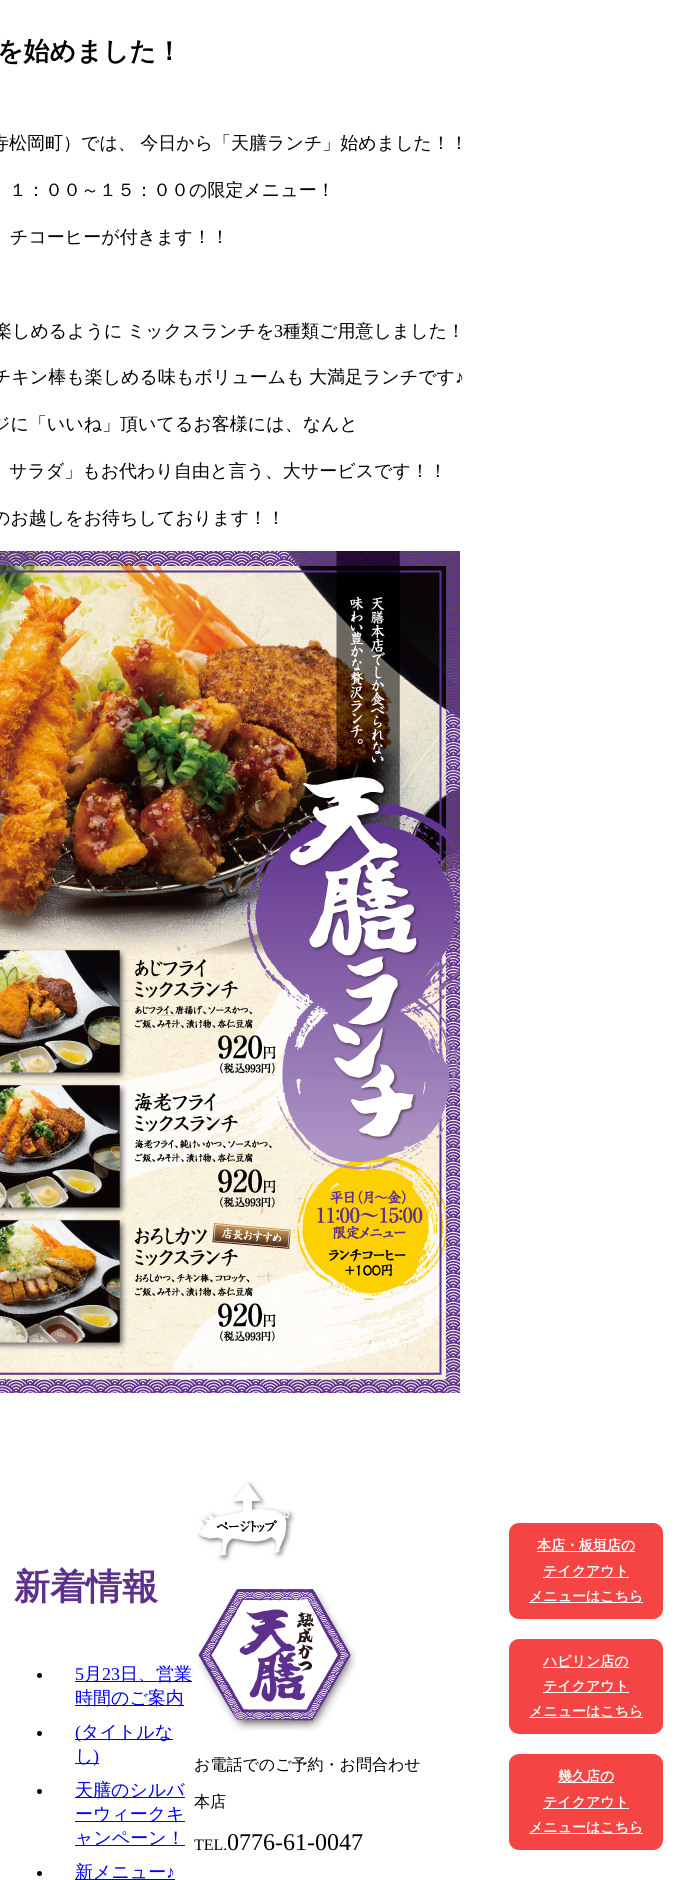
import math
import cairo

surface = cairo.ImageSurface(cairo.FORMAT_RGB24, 678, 1880)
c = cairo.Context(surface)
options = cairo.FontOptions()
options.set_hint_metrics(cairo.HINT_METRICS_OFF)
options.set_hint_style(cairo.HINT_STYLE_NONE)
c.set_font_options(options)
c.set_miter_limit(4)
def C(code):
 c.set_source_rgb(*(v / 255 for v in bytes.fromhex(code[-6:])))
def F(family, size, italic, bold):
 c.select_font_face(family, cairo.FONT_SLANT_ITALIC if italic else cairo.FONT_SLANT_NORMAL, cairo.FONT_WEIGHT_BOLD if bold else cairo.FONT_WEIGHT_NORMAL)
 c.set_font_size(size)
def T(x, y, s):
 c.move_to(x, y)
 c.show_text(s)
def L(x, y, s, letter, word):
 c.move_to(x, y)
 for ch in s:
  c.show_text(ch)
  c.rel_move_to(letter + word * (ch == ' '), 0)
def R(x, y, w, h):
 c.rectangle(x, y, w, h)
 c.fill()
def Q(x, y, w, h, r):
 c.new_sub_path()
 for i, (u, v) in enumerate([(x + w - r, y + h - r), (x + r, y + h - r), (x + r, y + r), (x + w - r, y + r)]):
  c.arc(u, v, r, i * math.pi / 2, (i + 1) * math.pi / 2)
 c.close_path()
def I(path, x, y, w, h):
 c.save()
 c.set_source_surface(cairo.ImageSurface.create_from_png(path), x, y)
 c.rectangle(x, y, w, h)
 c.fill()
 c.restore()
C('ffffff')
c.paint()
F('WenQuanYi Zen Hei',26,0,1)
C('000000')
T(-3,60,'を始めました！')
F('WenQuanYi Zen Hei Medium',18,0,0)
L(-9,149,'寺松岡町）では、 今日から「天膳ランチ」始めました！！',0,-1)
T(9,196,'１：００～１５：００の限定メニュー！')
T(10,243,'チコーヒーが付きます！！')
L(-6,337,'楽しめるように ミックスランチを',0,-1)
F('Liberation Serif',18,0,0)
T(274,337,'3')
F('WenQuanYi Zen Hei Medium',18,0,0)
T(283,337,'種類ご用意しました！')
L(-7,383,'チキン棒も楽しめる味もボリュームも 大満足ランチです',0,-1)
F('Liberation Serif',18,0,0)
T(455,383,'♪')
F('WenQuanYi Zen Hei Medium',18,0,0)
T(-8,430,'ジに「いいね」頂いてるお客様には、なんと')
T(9,477,'サラダ」もお代わり自由と言う、大サービスです！！')
T(-8,524,'のお越しをお待ちしております！！')
I('1.png',0,551,460,842)
F('WenQuanYi Zen Hei',36,0,1)
C('5d308d')
T(14,1599,'新着情報')
C('000000')
c.new_path()
c.arc(39.5,1675.5,2.5,0,2 * math.pi)
c.fill()
F('Liberation Serif',18,0,0)
C('0000ee')
T(75,1680,'5')
R(75,1681,117,1)
F('WenQuanYi Zen Hei Medium',18,0,0)
T(84,1680,'月')
F('Liberation Serif',18,0,0)
T(102,1680,'23')
F('WenQuanYi Zen Hei Medium',18,0,0)
T(120,1680,'日、営業')
R(75,1705,109,1)
T(75,1704,'時間のご案内')
C('000000')
c.new_path()
c.arc(39.5,1733.5,2.5,0,2 * math.pi)
c.fill()
C('0000ee')
R(75,1739,98,1)
F('Liberation Serif',18,0,0)
T(75,1738,'(')
F('WenQuanYi Zen Hei Medium',18,0,0)
T(81,1738,'タイトルな')
R(75,1763,24,1)
T(75,1762,'し')
F('Liberation Serif',18,0,0)
T(93,1762,')')
C('000000')
c.new_path()
c.arc(39.5,1791.5,2.5,0,2 * math.pi)
c.fill()
C('0000ee')
R(75,1797,110,1)
F('WenQuanYi Zen Hei Medium',18,0,0)
T(75,1796,'天膳のシルバ')
R(75,1821,110,1)
T(75,1820,'ーウィークキ')
R(75,1845,110,1)
T(75,1844,'ャンペーン！')
C('000000')
c.new_path()
c.arc(39.5,1873.5,2.5,0,2 * math.pi)
c.fill()
C('0000ee')
R(75,1879,100,1)
T(75,1878,'新メニュー')
F('Liberation Serif',18,0,0)
T(166,1878,'♪')
I('2.png',197,1481,98,81)
I('3.png',197,1588,160,143)
F('WenQuanYi Zen Hei Medium',16,0,0)
C('000000')
T(194,1770,'お電話でのご予約・お問合わせ')
T(194,1807,'本店')
F('Liberation Serif',16,0,0)
T(194,1850,'TEL.')
F('Liberation Serif',24,0,0)
T(227,1850,'0776-61-0047')
C('f44444')
Q(509,1523,154,96,10)
c.fill()
C('ffffff')
R(537,1551,98,1)
F('WenQuanYi Zen Hei',14,0,1)
T(537,1550,'本店・板垣店の')
R(543,1577,86,1)
T(543,1576,'テイクアウト')
R(529,1602,114,1)
T(529,1601,'メニューはこちら')
C('f44444')
Q(509,1639,154,95,10)
c.fill()
C('ffffff')
R(543,1667,86,1)
T(543,1666,'ハピリン店の')
R(543,1692,86,1)
T(543,1691,'テイクアウト')
R(529,1717,114,1)
T(529,1716,'メニューはこちら')
C('f44444')
Q(509,1754,154,96,10)
c.fill()
C('ffffff')
R(558,1782,56,1)
T(558,1781,'幾久店の')
R(543,1808,86,1)
T(543,1807,'テイクアウト')
R(529,1833,114,1)
T(529,1832,'メニューはこちら')
surface.write_to_png('o.png')
